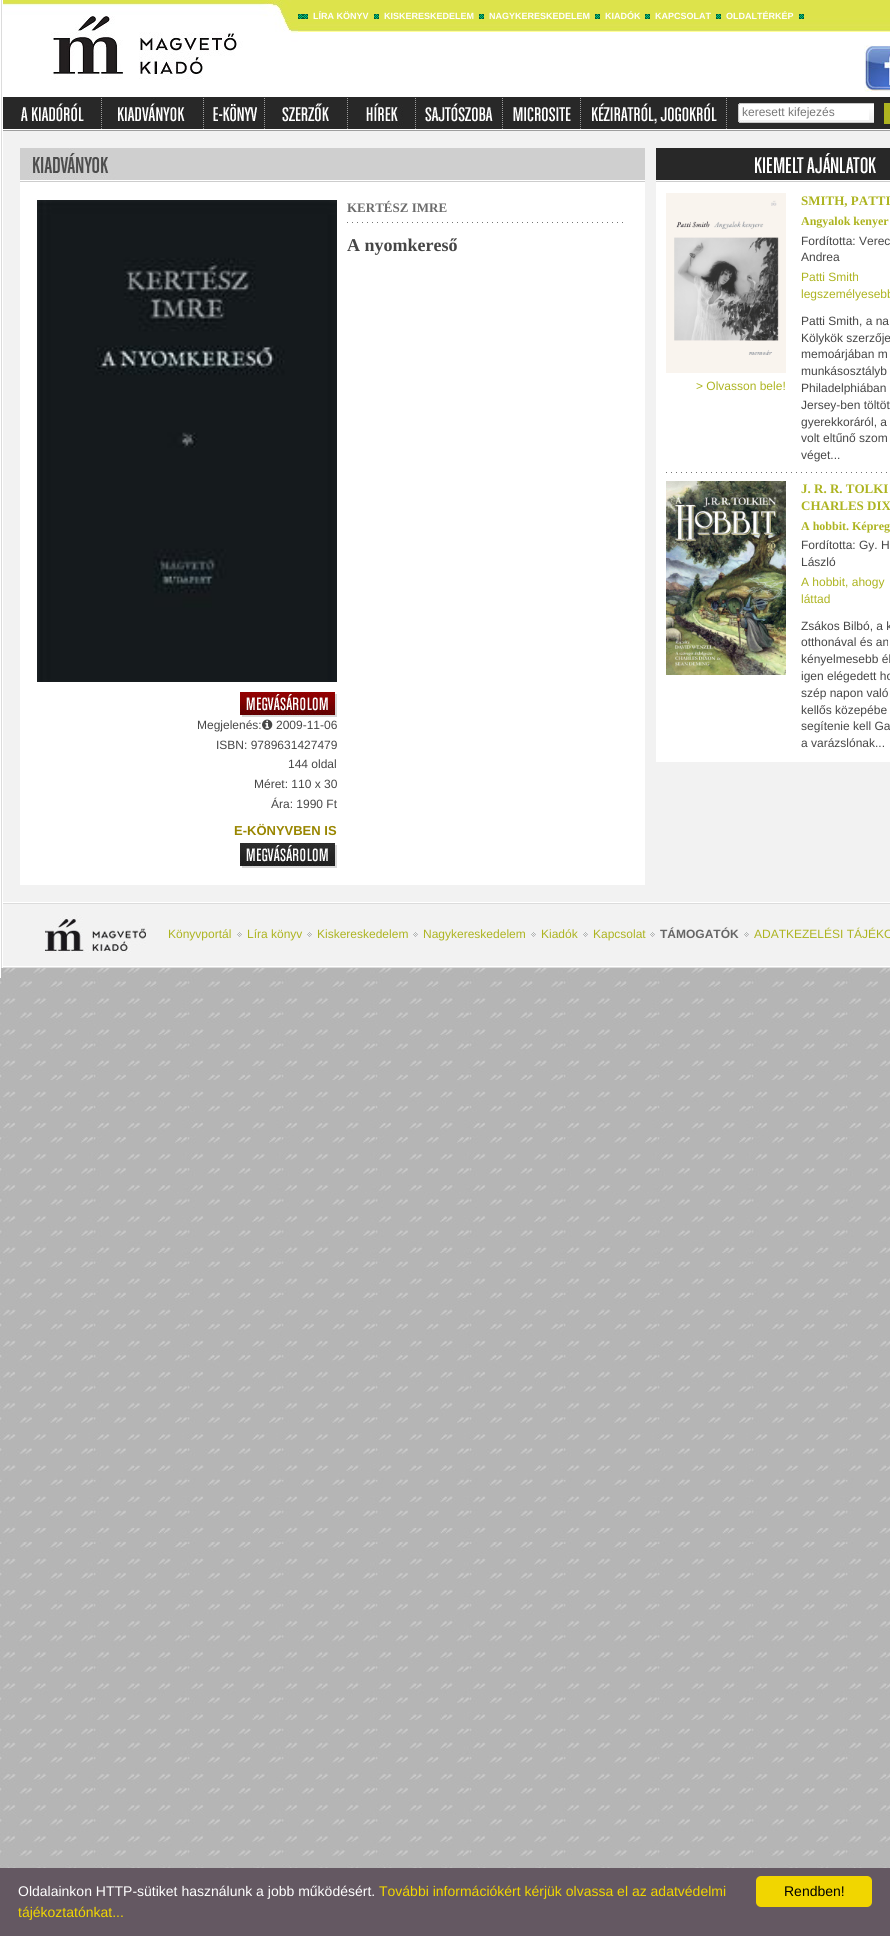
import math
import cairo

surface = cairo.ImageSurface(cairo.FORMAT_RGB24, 890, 1936)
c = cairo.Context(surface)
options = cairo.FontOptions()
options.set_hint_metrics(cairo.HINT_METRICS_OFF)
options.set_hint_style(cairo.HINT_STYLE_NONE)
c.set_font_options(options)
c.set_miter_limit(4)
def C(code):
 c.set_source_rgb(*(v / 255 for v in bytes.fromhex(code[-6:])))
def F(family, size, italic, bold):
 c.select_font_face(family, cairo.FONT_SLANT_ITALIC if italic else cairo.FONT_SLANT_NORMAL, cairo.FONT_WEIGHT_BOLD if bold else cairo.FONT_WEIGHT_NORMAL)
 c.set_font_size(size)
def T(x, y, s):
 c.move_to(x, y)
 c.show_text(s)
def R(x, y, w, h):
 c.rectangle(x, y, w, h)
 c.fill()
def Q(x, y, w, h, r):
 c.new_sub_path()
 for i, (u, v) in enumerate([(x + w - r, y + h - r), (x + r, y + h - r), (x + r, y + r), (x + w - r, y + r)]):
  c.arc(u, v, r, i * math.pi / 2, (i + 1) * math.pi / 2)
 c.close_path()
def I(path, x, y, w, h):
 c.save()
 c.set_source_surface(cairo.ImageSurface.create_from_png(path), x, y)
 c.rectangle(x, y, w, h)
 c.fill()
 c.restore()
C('ffffff')
c.paint()
I('1.png',0,968,890,900)
C('ffffff')
R(0,968,1,10)
C('dcdcdc')
R(1,0,1,968)
I('2.png',3,0,295,97)
I('3.png',298,0,592,97)
I('4.png',298,14,5,5)
I('4.png',303,14,5,5)
F('Liberation Sans',9,0,1)
C('ffffff')
T(313,19,'LÍRA KÖNYV')
I('4.png',374,14,5,5)
T(384,19,'KISKERESKEDELEM')
I('4.png',479,14,5,5)
T(489,19,'NAGYKERESKEDELEM')
I('4.png',595,14,5,5)
T(605,19,'KIADÓK')
I('4.png',645,14,5,5)
T(655,19,'KAPCSOLAT')
I('4.png',716,14,5,5)
T(726,19,'OLDALTÉRKÉP')
I('4.png',799,14,5,5)
I('5.png',864,45,26,47)
I('6.png',3,97,887,34)
I('7.png',20,100,64,23)
I('8.png',101,98,1,31)
I('9.png',118,98,68,24)
I('8.png',203,98,1,31)
I('10.png',213,102,46,21)
I('8.png',264,98,1,31)
I('11.png',282,100,47,24)
I('8.png',347,98,1,31)
I('12.png',366,103,47,24)
I('8.png',415,98,1,31)
I('13.png',425,103,68,19)
I('8.png',502,98,1,31)
I('14.png',513,107,58,15)
I('8.png',580,98,1,31)
I('15.png',592,103,125,21)
I('8.png',726,98,1,31)
I('16.png',738,103,136,20)
R(740,104,129,16)
F('Liberation Sans',12,0,0)
C('777777')
T(742,116,'keresett kifejezés')
I('17.png',884,103,6,21)
C('f2f2f2')
R(3,131,887,771)
I('18.png',20,148,625,35)
C('ffffff')
R(20,183,625,702)
F('Liberation Serif',13,0,1)
C('6c6c6c')
T(347,212,'KERTÉSZ IMRE')
I('19.png',347,222,276,1)
F('Liberation Serif',18,0,1)
C('464646')
T(347,251,'A nyomkereső')
I('20.png',37,200,300,482)
I('21.png',240,692,97,25)
F('Liberation Sans',12,0,0)
T(197,729,'Megjelenés:')
I('22.png',262,719,11,11)
T(276,729,'2009-11-06')
T(216,749,'ISBN: 9789631427479')
T(288,768,'144 oldal')
T(254,788,'Méret: 110 x 30')
T(271,808,'Ára: 1990 Ft')
F('Liberation Sans',13,0,1)
C('998600')
T(234,835,'E-KÖNYVBEN IS')
I('23.png',240,843,97,25)
I('24.png',656,148,234,35)
C('ffffff')
R(656,183,234,579)
I('25.png',666,193,120,180)
F('Liberation Sans',12,0,0)
C('adb420')
T(696,390,'> Olvasson bele!')
F('Liberation Serif',13,0,1)
T(801,205,'SMITH, PATTI')
F('Liberation Serif',12,0,1)
T(801,225,'Angyalok kenyer')
F('Liberation Sans',12,0,0)
C('464646')
T(801,245,'Fordította: Verec')
T(801,261,'Andrea')
C('adb420')
T(801,281,'Patti Smith')
T(801,298,'legszemélyesebb')
C('464646')
T(801,325,'Patti Smith, a na')
T(801,342,'Kölykök szerzője')
T(801,358,'memoárjában m')
T(801,375,'munkásosztályb')
T(801,392,'Philadelphiában')
T(801,409,'Jersey-ben töltöt')
T(801,426,'gyerekkoráról, a')
T(801,442,'volt eltűnő szom')
T(801,459,'véget...')
I('26.png',666,472,221,1)
I('27.png',666,481,120,194)
F('Liberation Serif',13,0,1)
C('adb420')
T(801,493,'J. R. R. TOLKI')
T(801,510,'CHARLES DIX')
F('Liberation Serif',12,0,1)
T(801,530,'A hobbit. Képreg')
F('Liberation Sans',12,0,0)
C('464646')
T(801,549,'Fordította: Gy. H')
T(801,566,'László')
C('adb420')
T(801,586,'A hobbit, ahogy')
T(801,603,'láttad')
C('464646')
T(801,630,'Zsákos Bilbó, a k')
T(801,646,'otthonával és an')
T(801,663,'kényelmesebb él')
T(801,680,'igen elégedett ho')
T(801,697,'szép napon való')
T(801,714,'kellős közepébe')
T(801,730,'segítenie kell Ga')
T(801,747,'a varázslónak...')
C('dcdcdc')
R(3,903,887,1)
C('f2f2f2')
R(3,904,887,62)
I('28.png',44,915,102,39)
C('adb420')
T(168,938,'Könyvportál')
I('29.png',237,932,5,5)
T(247,938,'Líra könyv')
I('29.png',307,932,5,5)
T(317,938,'Kiskereskedelem')
I('29.png',413,932,5,5)
T(423,938,'Nagykereskedelem')
I('29.png',531,932,5,5)
T(541,938,'Kiadók')
I('29.png',583,932,5,5)
T(593,938,'Kapcsolat')
I('29.png',650,932,5,5)
F('Liberation Sans',12,0,1)
C('666666')
T(660,938,'TÁMOGATÓK')
I('29.png',744,932,5,5)
F('Liberation Sans',12,0,0)
C('adb420')
T(754,938,'ADATKEZELÉSI TÁJÉKO')
C('dcdcdc')
R(3,967,887,1)
C('645862')
R(0,1868,890,68)
F('Liberation Sans',14,0,0)
C('ffffff')
T(18,1896,'Oldalainkon HTTP-sütiket használunk a jobb működésért.')
C('f1d600')
T(379,1896,'További információkért kérjük olvassa el az adatvédelmi')
T(18,1917,'tájékoztatónkat...')
Q(756,1876,116,31,5)
c.fill()
C('000000')
T(784,1896,'Rendben!')
surface.write_to_png('o.png')
